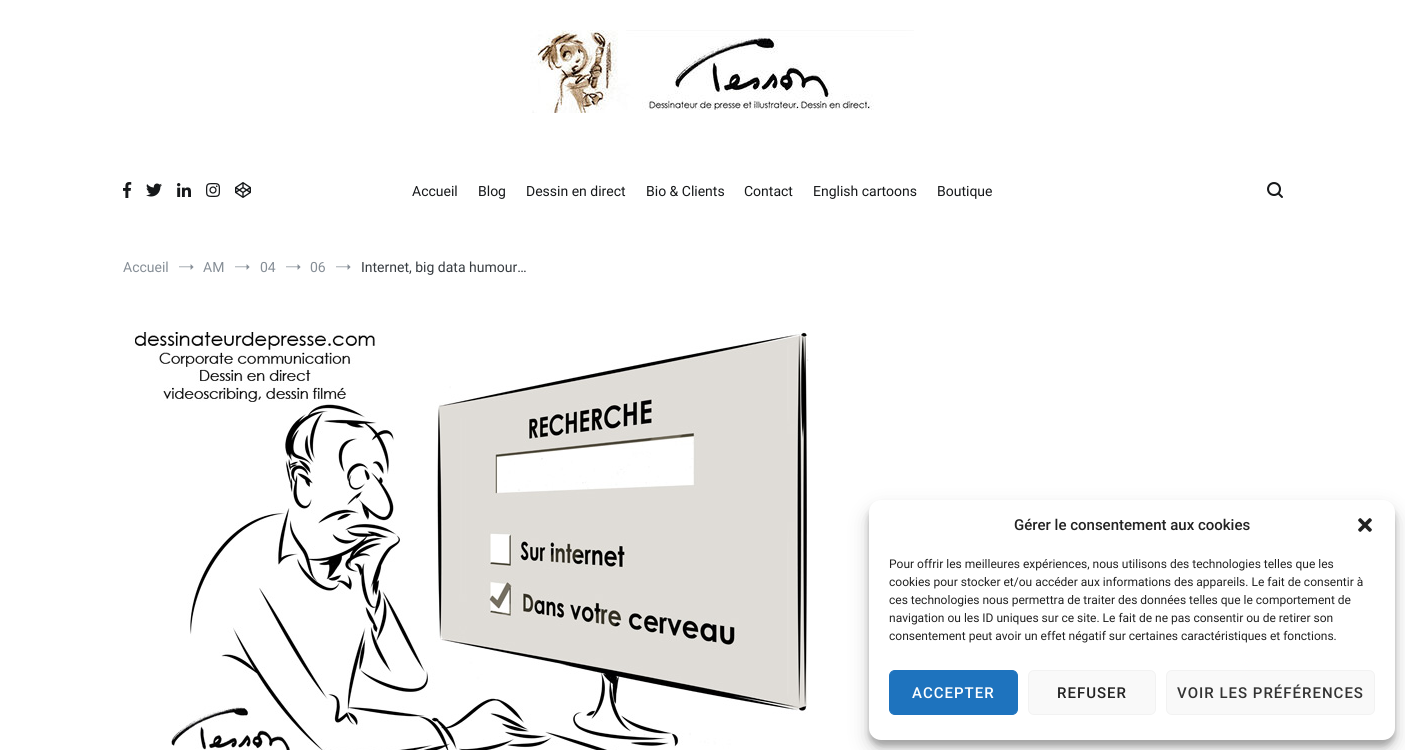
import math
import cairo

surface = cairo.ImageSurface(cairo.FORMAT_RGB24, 1405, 750)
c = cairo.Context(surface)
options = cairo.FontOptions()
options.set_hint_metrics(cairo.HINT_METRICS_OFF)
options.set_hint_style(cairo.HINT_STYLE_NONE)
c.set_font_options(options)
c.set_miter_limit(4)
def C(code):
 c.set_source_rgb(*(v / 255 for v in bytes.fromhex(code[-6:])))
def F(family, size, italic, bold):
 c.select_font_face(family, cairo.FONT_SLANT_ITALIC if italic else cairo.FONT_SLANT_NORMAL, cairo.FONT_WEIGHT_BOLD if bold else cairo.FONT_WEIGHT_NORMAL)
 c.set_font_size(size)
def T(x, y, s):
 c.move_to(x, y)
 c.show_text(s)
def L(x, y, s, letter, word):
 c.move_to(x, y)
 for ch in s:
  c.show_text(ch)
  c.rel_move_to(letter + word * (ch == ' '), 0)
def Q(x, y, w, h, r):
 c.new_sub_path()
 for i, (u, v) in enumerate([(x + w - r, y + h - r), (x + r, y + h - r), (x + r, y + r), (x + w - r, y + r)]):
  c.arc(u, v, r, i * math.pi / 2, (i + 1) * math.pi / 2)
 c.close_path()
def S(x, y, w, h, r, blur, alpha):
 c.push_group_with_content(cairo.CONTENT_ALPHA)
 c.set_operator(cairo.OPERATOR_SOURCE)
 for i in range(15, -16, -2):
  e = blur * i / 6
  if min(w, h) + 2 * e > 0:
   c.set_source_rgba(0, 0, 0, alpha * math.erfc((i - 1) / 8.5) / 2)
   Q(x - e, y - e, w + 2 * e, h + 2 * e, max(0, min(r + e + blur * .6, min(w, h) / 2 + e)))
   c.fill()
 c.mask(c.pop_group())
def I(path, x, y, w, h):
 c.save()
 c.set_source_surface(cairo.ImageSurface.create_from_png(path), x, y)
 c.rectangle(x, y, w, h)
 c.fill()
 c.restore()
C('ffffff')
c.paint()
I('1.png',530,30,384,83)
I('2.png',123,182,9,16)
I('3.png',146,183,16,14)
I('4.png',177,183,14,14)
I('5.png',206,183,14,14)
I('6.png',235,182,16,16)
F('Roboto',14,0,0)
C('16181a')
T(412,196,'Accueil')
T(478,196,'Blog')
T(526,196,'Dessin en direct')
T(646,196,'Bio & Clients')
T(744,196,'Contact')
T(813,196,'English cartoons')
T(937,196,'Boutique')
I('7.png',1267,182,16,16)
C('868e96')
T(123,272,'Accueil')
I('8.png',179,264,15,6)
T(203,272,'AM')
I('8.png',235,264,15,6)
T(260,272,'04')
I('8.png',286,264,15,6)
T(310,272,'06')
I('8.png',336,264,15,6)
C('363b40')
T(361,272,'Internet, big data humour…')
I('9.png',133,330,676,420)
C('000000')
S(869,506,526,240,12,3,.23)
S(869,510,526,240,12,10,.19)
C('ffffff')
Q(869,500,526,240,12)
c.fill()
F('Roboto Medium',15,0,0)
C('222222')
T(1014,530,'Gérer le consentement aux cookies')
I('10.png',1358,518,14,14)
F('Roboto',12,0,0)
T(889,568,'Pour offrir les meilleures expériences, nous utilisons des technologies telles que les')
T(889,586,'cookies pour stocker et/ou accéder aux informations des appareils. Le fait de consentir à')
T(889,604,'ces technologies nous permettra de traiter des données telles que le comportement de')
T(889,622,'navigation ou les ID uniques sur ce site. Le fait de ne pas consentir ou de retirer son')
T(889,640,'consentement peut avoir un effet négatif sur certaines caractéristiques et fonctions.')
C('1e73be')
Q(889.5,670.5,128,44,5.5)
c.fill_preserve()
c.set_line_width(1)
c.stroke()
F('Roboto Medium',15,0,0)
C('ffffff')
L(912,698,'ACCEPTER',1,0)
C('f9f9f9')
Q(1028.5,670.5,127,44,5.5)
c.fill_preserve()
C('f2f2f2')
c.stroke()
C('222222')
L(1057,698,'REFUSER',1,0)
C('f9f9f9')
Q(1166.5,670.5,208,44,5.5)
c.fill_preserve()
C('f2f2f2')
c.stroke()
C('333333')
L(1177,698,'VOIR LES PRÉFÉRENCES',1,0)
surface.write_to_png('o.png')
